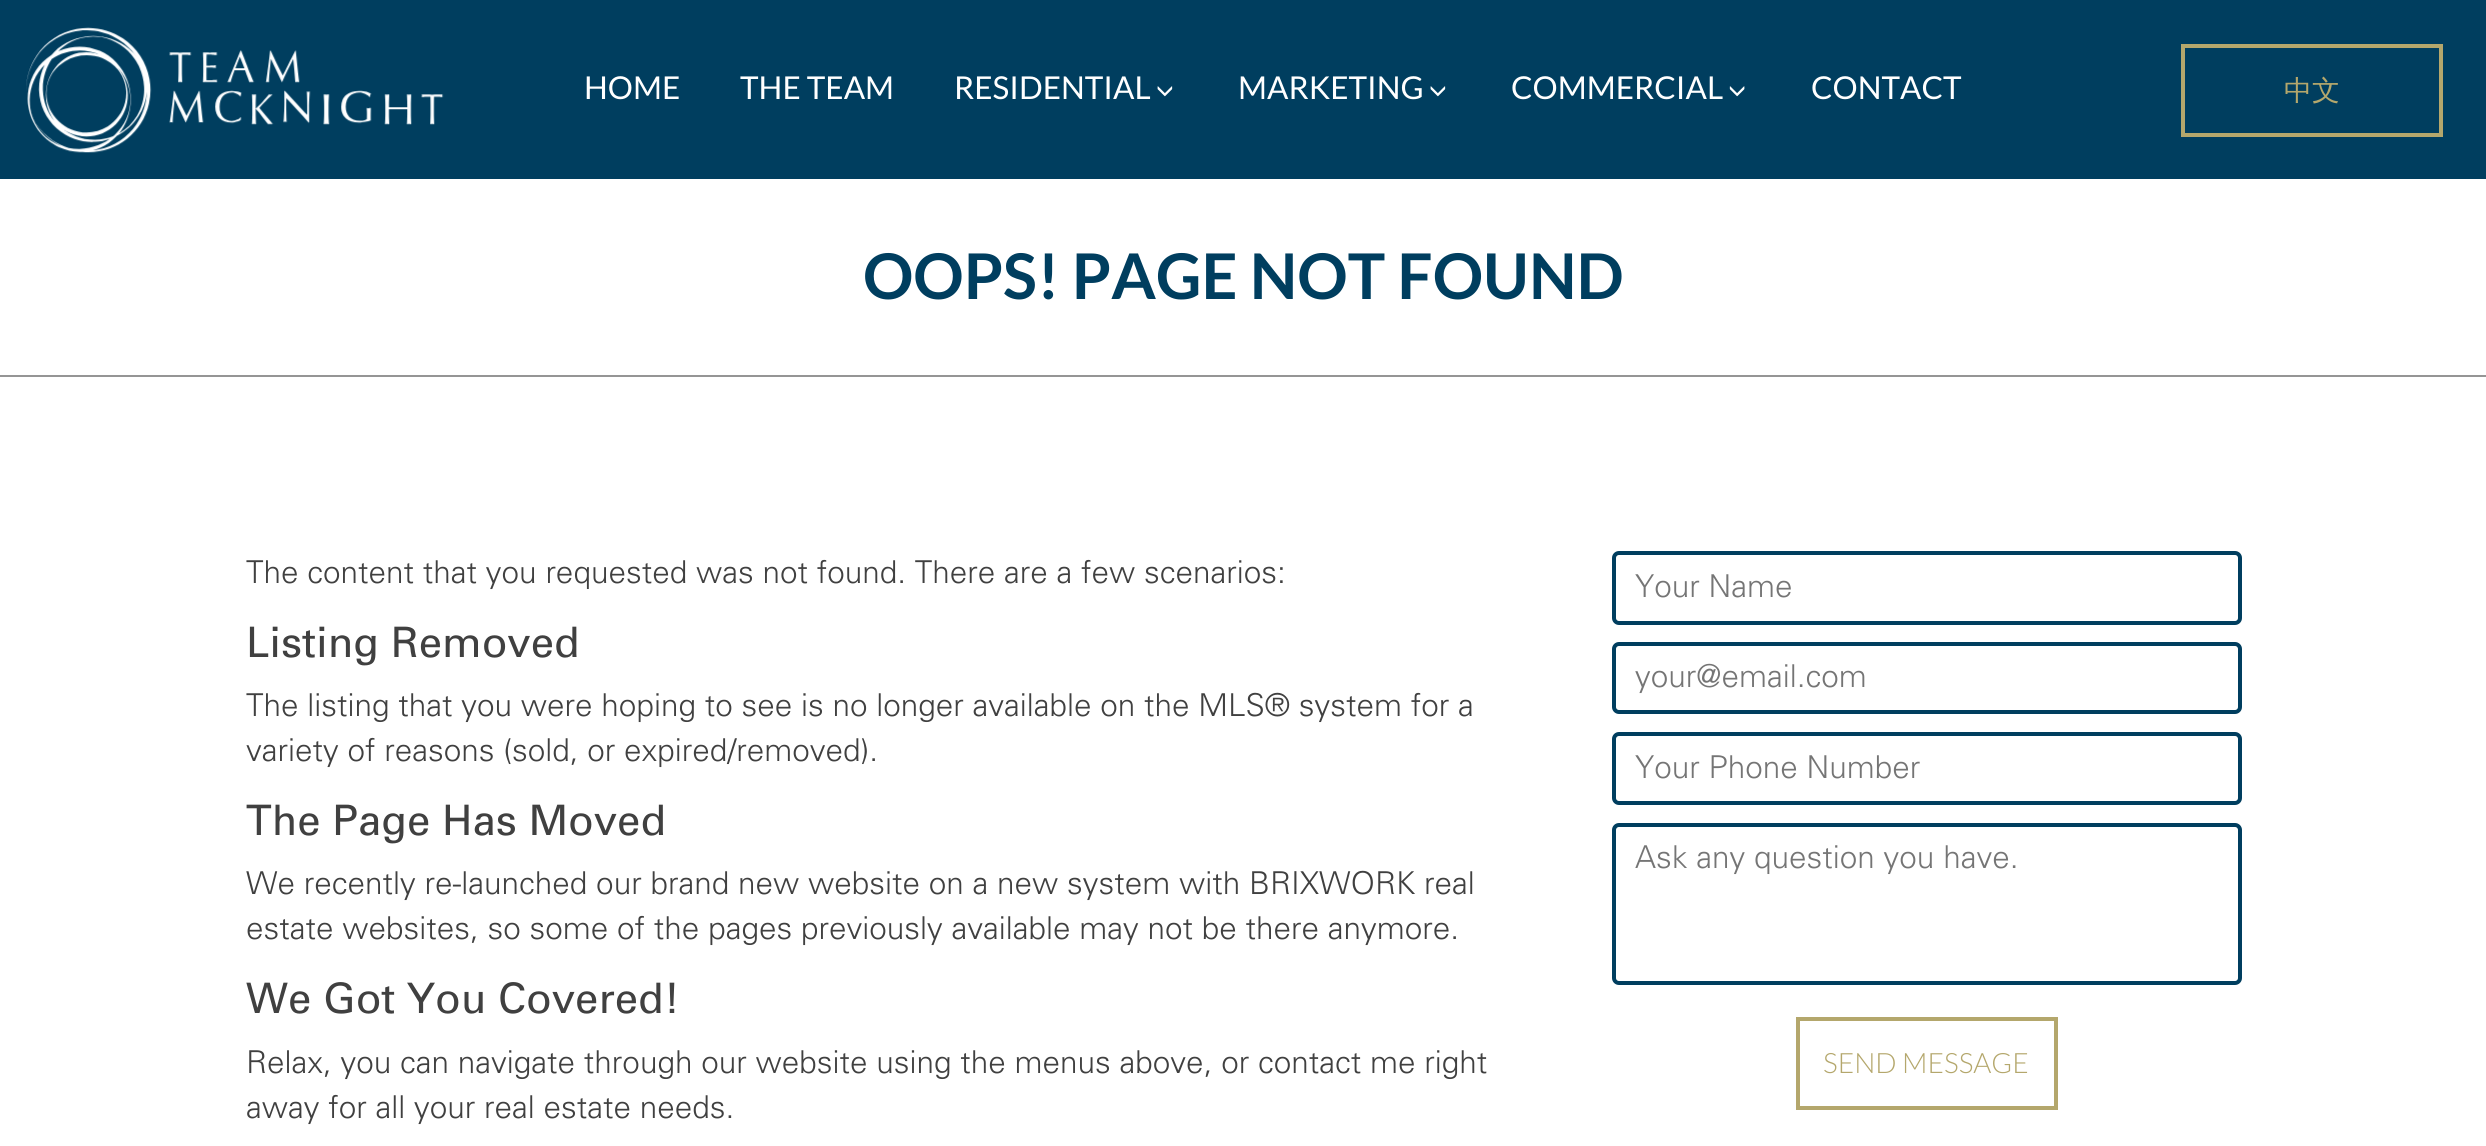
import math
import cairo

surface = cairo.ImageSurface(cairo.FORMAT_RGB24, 2486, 1146)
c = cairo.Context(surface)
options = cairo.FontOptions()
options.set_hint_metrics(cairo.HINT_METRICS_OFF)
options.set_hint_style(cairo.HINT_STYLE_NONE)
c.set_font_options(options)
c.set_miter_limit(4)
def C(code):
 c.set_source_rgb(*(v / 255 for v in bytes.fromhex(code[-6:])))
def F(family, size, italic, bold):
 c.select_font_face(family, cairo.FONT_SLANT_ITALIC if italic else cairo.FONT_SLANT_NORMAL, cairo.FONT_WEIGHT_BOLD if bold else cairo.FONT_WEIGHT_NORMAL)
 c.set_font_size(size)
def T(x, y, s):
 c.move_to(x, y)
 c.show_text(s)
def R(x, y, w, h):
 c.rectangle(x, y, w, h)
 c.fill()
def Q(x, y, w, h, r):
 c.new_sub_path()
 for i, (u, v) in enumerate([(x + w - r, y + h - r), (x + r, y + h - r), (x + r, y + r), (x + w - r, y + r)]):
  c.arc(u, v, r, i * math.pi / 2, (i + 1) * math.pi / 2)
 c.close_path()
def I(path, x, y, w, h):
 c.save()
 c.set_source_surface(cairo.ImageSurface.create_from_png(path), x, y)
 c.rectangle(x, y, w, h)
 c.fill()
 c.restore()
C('ffffff')
c.paint()
C('003e5f')
R(0,0,2486,179)
I('1.png',26,27,418,126)
F('Lato',31.5,0,0)
C('ffffff')
T(584,99,'HOME')
T(740,99,'THE TEAM')
T(954,99,'RESIDENTIAL')
I('2.png',1157,86,16,11)
T(1238,99,'MARKETING')
I('2.png',1430,86,16,11)
T(1511,99,'COMMERCIAL')
I('3.png',1729,86,16,11)
T(1811,99,'CONTACT')
c.rectangle(2183,46,258,89)
C('b4a76c')
c.set_line_width(4)
c.stroke()
F('WenQuanYi Zen Hei Medium',28,0,0)
T(2284,100,'中文')
F('Lato',63,0,1)
C('003e5f')
T(863,299,'OOPS! PAGE NOT FOUND')
C('959595')
R(0,375,2486,2)
F('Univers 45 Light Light',31.5,0,0)
C('404040')
T(246,583,'The content that you requested was not found. There are a few scenarios:')
F('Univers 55 Medium',42,0,0)
T(246,657,'Listing Removed')
F('Univers 45 Light Light',31.5,0,0)
T(246,716,'The listing that you were hoping to see is no longer available on the MLS® system for a')
T(246,761,'variety of reasons (sold, or expired/removed).')
F('Univers 55 Medium',42,0,0)
T(246,835,'The Page Has Moved')
F('Univers 45 Light Light',31.5,0,0)
T(246,894,'We recently re-launched our brand new website on a new system with BRIXWORK real')
T(246,939,'estate websites, so some of the pages previously available may not be there anymore.')
F('Univers 55 Medium',42,0,0)
T(246,1013,'We Got You Covered!')
F('Univers 45 Light Light',31.5,0,0)
T(246,1073,'Relax, you can navigate through our website using the menus above, or contact me right')
T(246,1118,'away for all your real estate needs.')
Q(1614,553,626,70,5)
C('003e5f')
c.stroke()
C('757575')
T(1635,597,'Your Name')
Q(1614,644,626,68,5)
C('003e5f')
c.stroke()
C('757575')
T(1635,687,'your@email.com')
Q(1614,734,626,69,5)
C('003e5f')
c.stroke()
C('757575')
T(1635,778,'Your Phone Number')
Q(1614,825,626,158,5)
C('003e5f')
c.stroke()
C('757575')
T(1635,868,'Ask any question you have.')
c.rectangle(1798,1019,258,89)
C('b4a76c')
c.stroke()
F('Lato Light',28,0,0)
T(1823,1073,'SEND MESSAGE')
surface.write_to_png('o.png')
